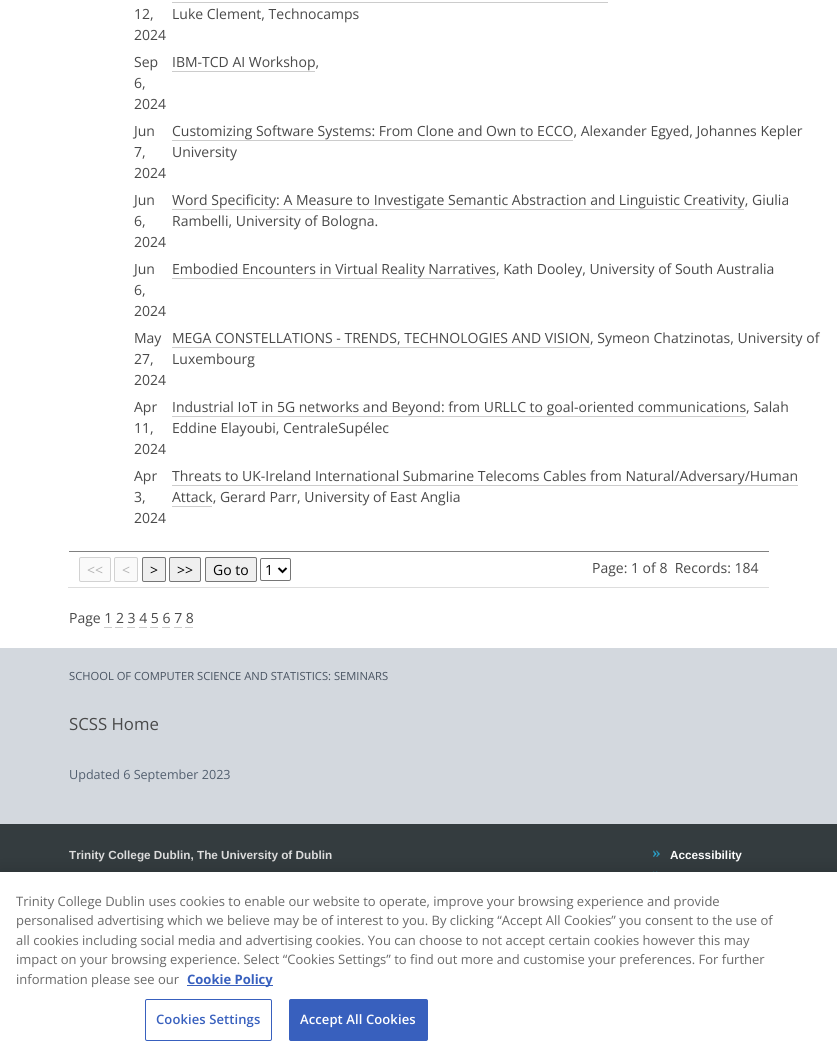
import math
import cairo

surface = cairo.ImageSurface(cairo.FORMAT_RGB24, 837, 1057)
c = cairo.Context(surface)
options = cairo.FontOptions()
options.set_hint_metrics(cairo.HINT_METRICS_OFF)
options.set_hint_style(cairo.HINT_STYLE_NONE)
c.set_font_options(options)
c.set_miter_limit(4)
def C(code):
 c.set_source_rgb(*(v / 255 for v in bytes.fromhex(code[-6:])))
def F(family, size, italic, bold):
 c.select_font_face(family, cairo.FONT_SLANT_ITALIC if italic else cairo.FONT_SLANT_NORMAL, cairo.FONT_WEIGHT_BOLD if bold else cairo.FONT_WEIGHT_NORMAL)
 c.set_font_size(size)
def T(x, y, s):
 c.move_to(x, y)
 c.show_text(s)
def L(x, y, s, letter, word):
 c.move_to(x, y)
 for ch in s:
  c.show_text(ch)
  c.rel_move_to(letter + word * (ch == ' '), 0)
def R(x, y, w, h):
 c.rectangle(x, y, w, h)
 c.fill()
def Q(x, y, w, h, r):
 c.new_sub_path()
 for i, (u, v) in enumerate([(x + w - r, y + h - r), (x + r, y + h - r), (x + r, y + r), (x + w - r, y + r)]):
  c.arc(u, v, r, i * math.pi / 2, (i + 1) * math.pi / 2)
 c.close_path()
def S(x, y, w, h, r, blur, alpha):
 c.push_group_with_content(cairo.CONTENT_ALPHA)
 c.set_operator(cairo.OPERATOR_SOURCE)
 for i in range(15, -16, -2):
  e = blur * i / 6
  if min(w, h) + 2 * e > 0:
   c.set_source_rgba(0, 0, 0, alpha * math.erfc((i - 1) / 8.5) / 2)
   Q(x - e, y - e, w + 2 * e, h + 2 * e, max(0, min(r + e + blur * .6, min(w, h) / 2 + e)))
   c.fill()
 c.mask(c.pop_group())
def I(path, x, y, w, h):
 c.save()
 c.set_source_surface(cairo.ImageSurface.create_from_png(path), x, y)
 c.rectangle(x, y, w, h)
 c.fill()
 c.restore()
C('ffffff')
c.paint()
F('Open Sans',14,0,0)
C('494949')
T(134,19,'12,')
T(134,40,'2024')
C('cccccc')
R(172,2,436,1)
C('494949')
T(172,19,'Luke Clement, Technocamps')
T(134,67,'Sep')
T(134,88,'6,')
T(134,109,'2024')
T(172,67,'IBM-TCD AI Workshop,')
C('cccccc')
R(172,71,143,1)
C('494949')
T(134,136,'Jun')
T(134,157,'7,')
T(134,178,'2024')
T(172,136,'Customizing Software Systems: From Clone and Own to ECCO, Alexander Egyed, Johannes Kepler')
C('cccccc')
R(172,140,401,1)
C('494949')
T(172,157,'University')
T(134,205,'Jun')
T(134,226,'6,')
T(134,247,'2024')
T(172,205,'Word Specificity: A Measure to Investigate Semantic Abstraction and Linguistic Creativity, Giulia')
C('cccccc')
R(172,209,572,1)
C('494949')
T(172,226,'Rambelli, University of Bologna.')
T(134,274,'Jun')
T(134,295,'6,')
T(134,316,'2024')
T(172,274,'Embodied Encounters in Virtual Reality Narratives, Kath Dooley, University of South Australia')
C('cccccc')
R(172,278,323,1)
C('494949')
T(134,343,'May')
T(134,364,'27,')
T(134,385,'2024')
T(172,343,'MEGA CONSTELLATIONS - TRENDS, TECHNOLOGIES AND VISION, Symeon Chatzinotas, University of')
C('cccccc')
R(172,347,418,1)
C('494949')
T(172,364,'Luxembourg')
T(134,412,'Apr')
T(134,433,'11,')
T(134,454,'2024')
T(172,412,'Industrial IoT in 5G networks and Beyond: from URLLC to goal-oriented communications, Salah')
C('cccccc')
R(172,416,574,1)
C('494949')
T(172,433,'Eddine Elayoubi, CentraleSupélec')
T(134,481,'Apr')
T(134,502,'3,')
T(134,523,'2024')
T(172,481,'Threats to UK-Ireland International Submarine Telecoms Cables from Natural/Adversary/Human')
C('cccccc')
R(172,485,626,1)
C('494949')
T(172,502,'Attack, Gerard Parr, University of East Anglia')
C('cccccc')
R(172,506,40,1)
C('808080')
R(69,551,700,1)
C('fafafa')
Q(79.5,557.5,31,24,1.5)
c.fill_preserve()
C('d2d2d2')
c.set_line_width(1)
c.stroke()
C('b4b4b4')
T(87,575,'<<')
C('fafafa')
Q(114.5,557.5,23,24,1.5)
c.fill_preserve()
C('d2d2d2')
c.stroke()
C('b4b4b4')
T(122,575,'<')
C('efefef')
Q(142.5,557.5,23,24,1.5)
c.fill_preserve()
C('767676')
c.stroke()
C('000000')
T(150,575,'>')
C('efefef')
Q(169.5,557.5,31,24,1.5)
c.fill_preserve()
C('767676')
c.stroke()
C('000000')
T(177,575,'>>')
C('efefef')
Q(205.5,557.5,51,24,1.5)
c.fill_preserve()
C('767676')
c.stroke()
C('000000')
T(213,575,'Go to')
Q(260.5,558.5,30,22,1.5)
C('767676')
c.stroke()
c.new_path()
c.move_to(278.5,568)
c.line_to(282.5,572)
c.line_to(286.5,568)
C('000000')
c.set_line_width(2)
c.stroke()
T(265,575,'1')
C('dddddd')
R(68,587,701,1)
C('494949')
T(592,573,'Page: 1 of 8  Records: 184')
T(69,623,'Page 1 2 3 4 5 6 7 8')
C('cccccc')
R(104,627,8,1)
R(115,627,8,1)
R(127,627,8,1)
R(139,627,8,1)
R(150,627,8,1)
R(162,627,8,1)
R(174,627,8,1)
R(185,627,8,1)
C('d3d8de')
R(0,648,837,176)
F('Open Sans',11.2,0,0)
C('485361')
T(69,680,'SCHOOL OF COMPUTER SCIENCE AND STATISTICS: SEMINARS')
F('Open Sans',16.75,0,0)
C('494949')
T(69,730,'SCSS Home')
F('Open Sans',12.6,0,0)
C('525f6f')
T(69,779,'Updated 6 September 2023')
C('343c3f')
R(0,824,837,48)
F('Liberation Sans',11.75,0,1)
C('dddddd')
T(69,859,'Trinity College Dublin, The University of Dublin')
I('1.png',653,850,7,7)
C('ffffff')
T(670,859,'Accessibility')
I('2.png',653,871,5,1)
C('000000')
S(0,872,837,185,0,9,.2)
C('ffffff')
R(0,872,837,185)
F('Open Sans',13,0,0)
C('696969')
T(16,906,'Trinity College Dublin uses cookies to enable our website to operate, improve your browsing experience and provide')
T(16,925,'personalised advertising which we believe may be of interest to you. By clicking “Accept All Cookies” you consent to the use of')
T(16,945,'all cookies including social media and advertising cookies. You can choose to not accept certain cookies however this may')
T(16,964,'impact on your browsing experience. Select “Cookies Settings” to find out more and customise your preferences. For further')
T(16,984,'information please see our')
C('3860be')
R(187,985,86,1)
F('Open Sans',13,0,1)
T(187,984,'Cookie Policy')
Q(145.5,999.5,126,41,1.5)
c.set_line_width(1)
c.stroke()
F('Open Sans SemiBold',13,0,0)
L(156,1024,'Cookies Settings',.1,0)
Q(289.5,999.5,138,41,1.5)
c.fill_preserve()
c.stroke()
C('ffffff')
L(300,1024,'Accept All Cookies',.1,0)
surface.write_to_png('o.png')
